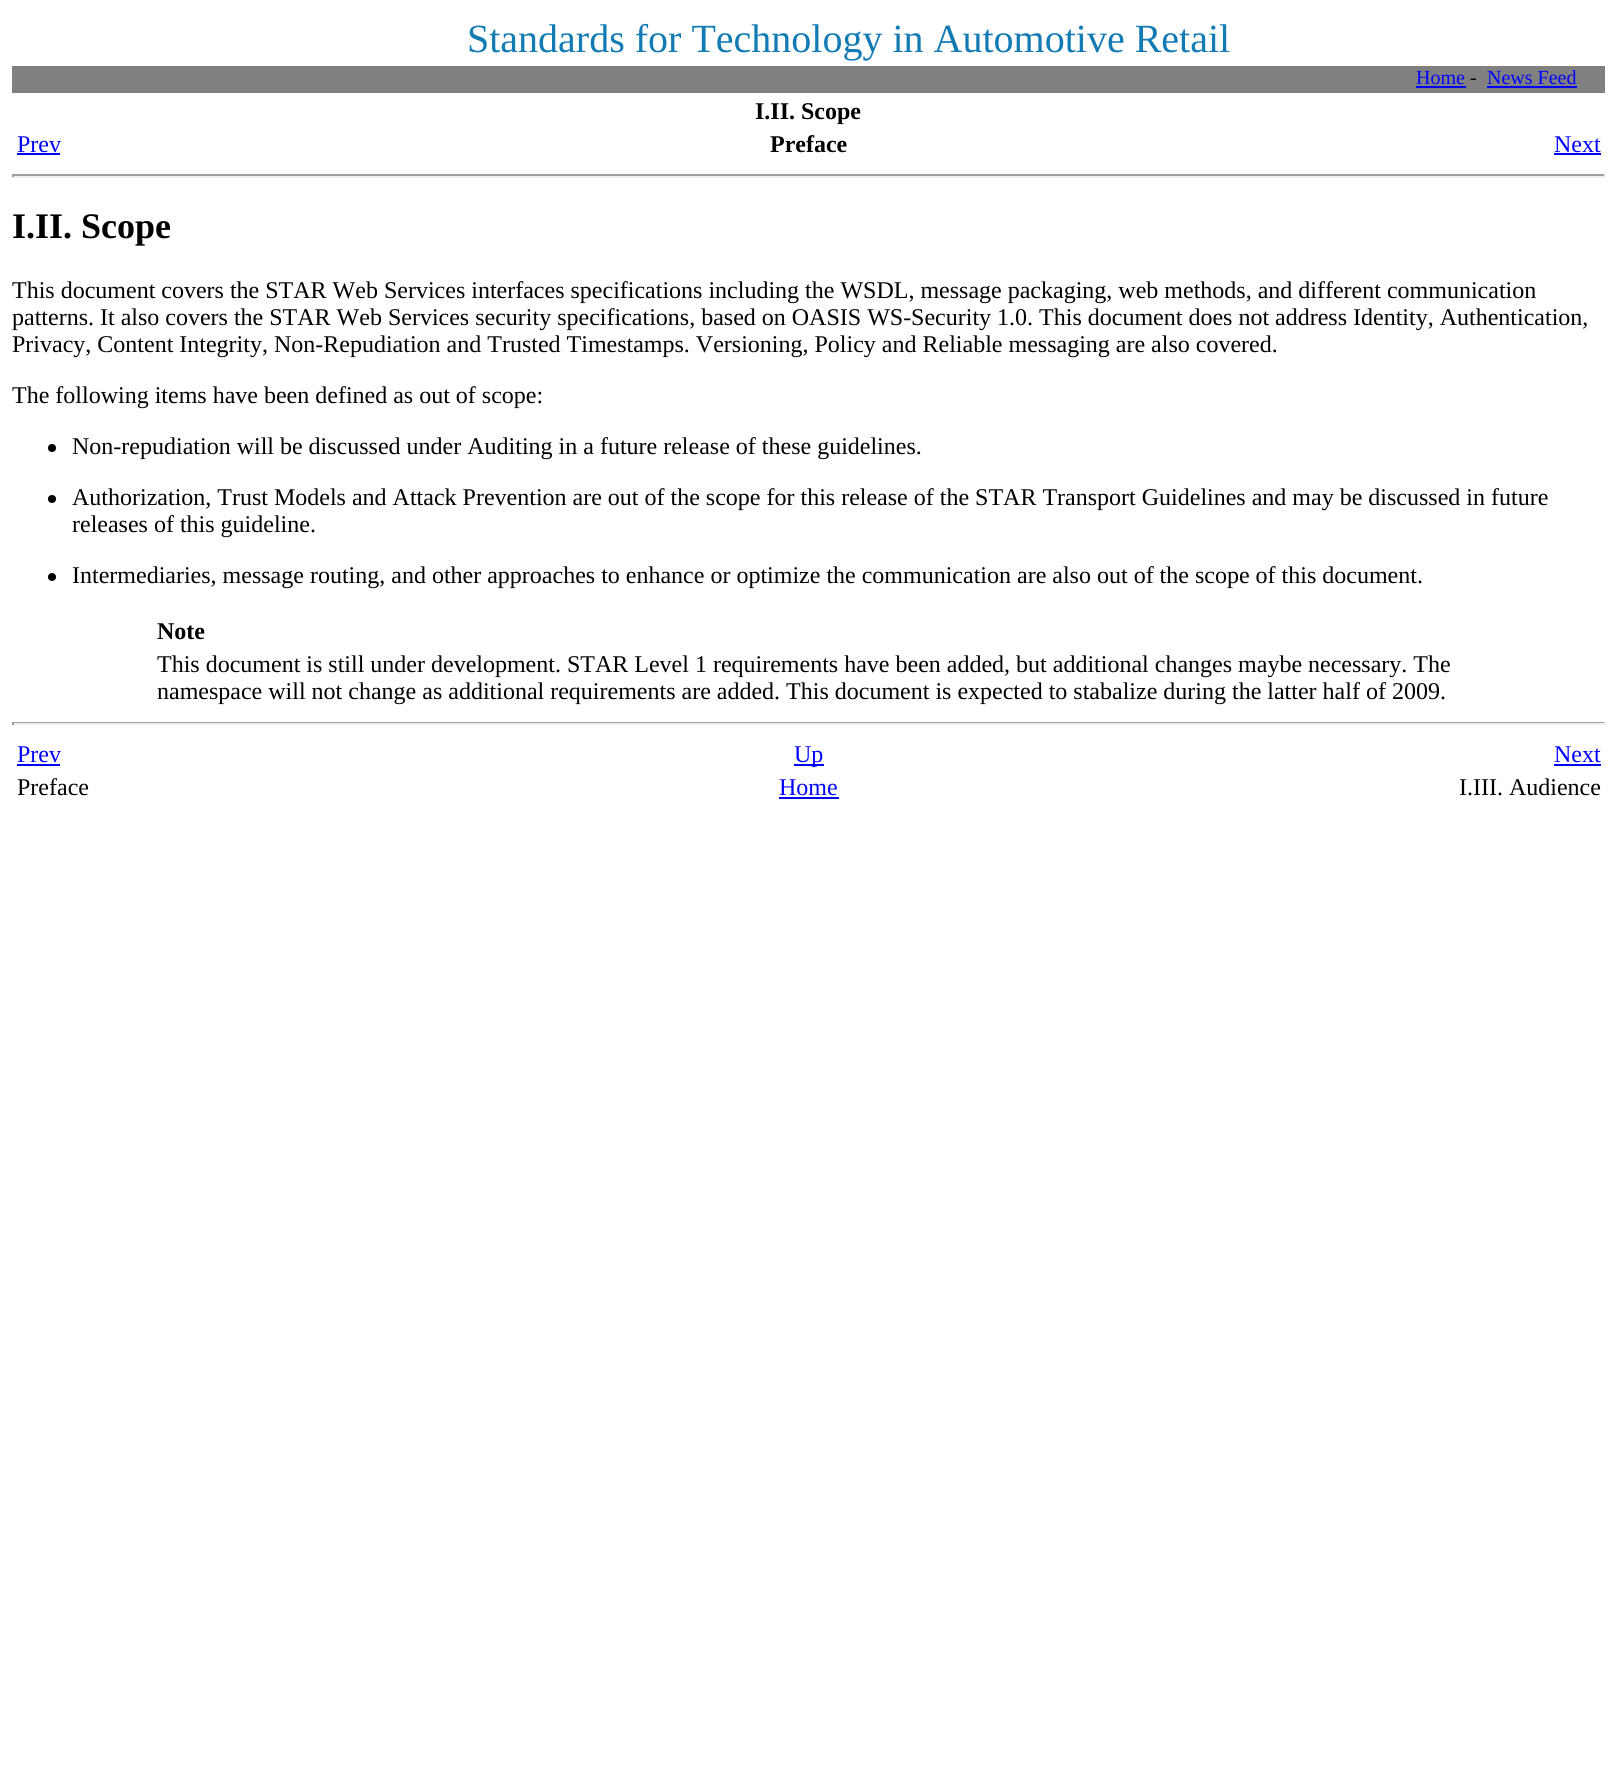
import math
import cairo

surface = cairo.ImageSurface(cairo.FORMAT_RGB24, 1617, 1770)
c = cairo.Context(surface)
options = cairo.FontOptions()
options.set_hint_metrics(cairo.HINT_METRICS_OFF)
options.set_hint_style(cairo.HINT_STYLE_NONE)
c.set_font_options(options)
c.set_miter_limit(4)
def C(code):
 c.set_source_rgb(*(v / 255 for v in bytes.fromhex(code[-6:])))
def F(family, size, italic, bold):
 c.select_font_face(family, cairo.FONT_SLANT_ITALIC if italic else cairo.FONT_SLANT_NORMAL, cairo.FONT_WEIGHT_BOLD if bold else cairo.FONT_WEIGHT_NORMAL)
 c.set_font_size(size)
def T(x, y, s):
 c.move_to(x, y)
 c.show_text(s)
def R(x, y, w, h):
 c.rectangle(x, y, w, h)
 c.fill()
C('ffffff')
c.paint()
F('Liberation Serif',40,0,0)
C('127bb4')
T(467,52,'Standards for Technology in Automotive Retail')
C('808080')
R(12,66,1593,27)
F('Liberation Serif',20,0,0)
C('0000ff')
T(1416,84,'Home')
R(1416,86,50,2)
C('000000')
T(1470,84,'-')
C('0000ff')
T(1487,84,'News Feed')
R(1487,86,90,2)
F('Liberation Serif',24,0,1)
C('000000')
T(755,119,'I.II. Scope')
F('Liberation Serif',24,0,0)
C('0000ff')
T(17,152,'Prev')
R(17,153,43,2)
F('Liberation Serif',24,0,1)
C('000000')
T(770,152,'Preface')
F('Liberation Serif',24,0,0)
C('0000ff')
T(1554,152,'Next')
R(1554,153,47,2)
C('9f9f9f')
R(12,174,1593,2)
C('eeeeee')
R(1604,174,2,3)
R(12,176,1593,2)
C('9f9f9f')
R(12,174,2,3)
F('Liberation Serif',36,0,1)
C('000000')
T(12,238,'I.II. Scope')
F('Liberation Serif',24,0,0)
T(12,298,'This document covers the STAR Web Services interfaces specifications including the WSDL, message packaging, web methods, and different communication')
T(12,325,'patterns. It also covers the STAR Web Services security specifications, based on OASIS WS-Security 1.0. This document does not address Identity, Authentication,')
T(12,352,'Privacy, Content Integrity, Non-Repudiation and Trusted Timestamps. Versioning, Policy and Reliable messaging are also covered.')
T(12,403,'The following items have been defined as out of scope:')
c.new_path()
c.arc(52,448,4,0,2 * math.pi)
c.fill()
T(72,454,'Non-repudiation will be discussed under Auditing in a future release of these guidelines.')
c.new_path()
c.arc(52,499,4,0,2 * math.pi)
c.fill()
T(72,505,'Authorization, Trust Models and Attack Prevention are out of the scope for this release of the STAR Transport Guidelines and may be discussed in future')
T(72,532,'releases of this guideline.')
c.new_path()
c.arc(52,577,4,0,2 * math.pi)
c.fill()
T(72,583,'Intermediaries, message routing, and other approaches to enhance or optimize the communication are also out of the scope of this document.')
F('Liberation Serif',24,0,1)
T(157,639,'Note')
F('Liberation Serif',24,0,0)
T(157,672,'This document is still under development. STAR Level 1 requirements have been added, but additional changes maybe necessary. The')
T(157,699,'namespace will not change as additional requirements are added. This document is expected to stabalize during the latter half of 2009.')
C('9f9f9f')
R(12,722,1593,1)
C('eeeeee')
R(1604,722,2,3)
R(12,723,1593,2)
C('9f9f9f')
R(12,722,2,3)
C('0000ff')
T(17,762,'Prev')
R(17,764,43,2)
R(794,764,30,2)
T(794,762,'Up')
T(1554,762,'Next')
R(1554,764,47,2)
C('000000')
T(17,795,'Preface')
C('0000ff')
T(779,795,'Home')
R(779,797,60,2)
C('000000')
T(1459,795,'I.III. Audience')
surface.write_to_png('o.png')
